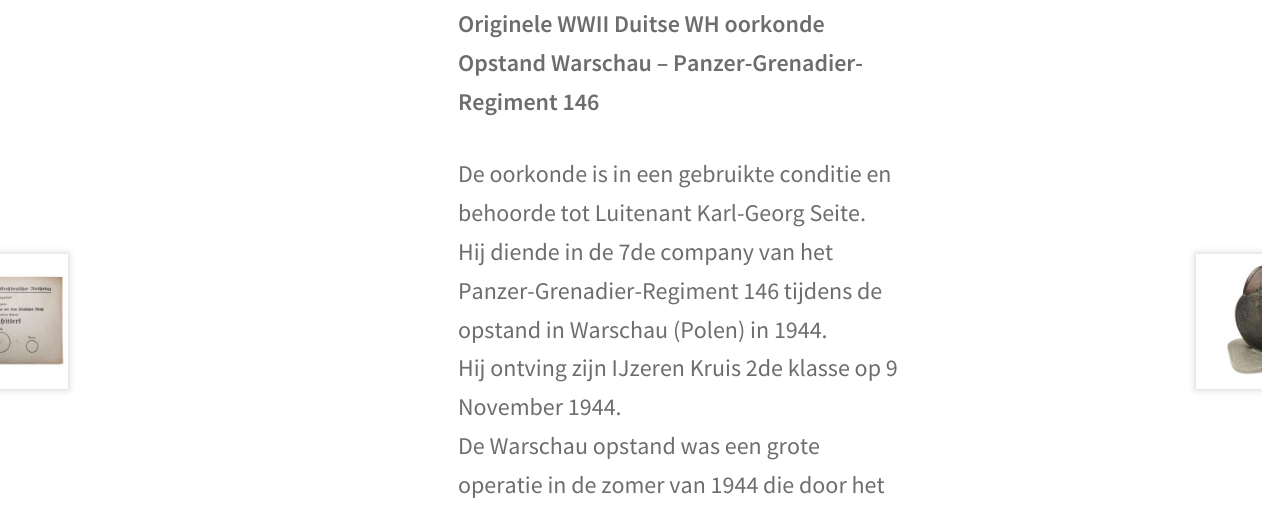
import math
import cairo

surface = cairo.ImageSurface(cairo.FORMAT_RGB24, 1262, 507)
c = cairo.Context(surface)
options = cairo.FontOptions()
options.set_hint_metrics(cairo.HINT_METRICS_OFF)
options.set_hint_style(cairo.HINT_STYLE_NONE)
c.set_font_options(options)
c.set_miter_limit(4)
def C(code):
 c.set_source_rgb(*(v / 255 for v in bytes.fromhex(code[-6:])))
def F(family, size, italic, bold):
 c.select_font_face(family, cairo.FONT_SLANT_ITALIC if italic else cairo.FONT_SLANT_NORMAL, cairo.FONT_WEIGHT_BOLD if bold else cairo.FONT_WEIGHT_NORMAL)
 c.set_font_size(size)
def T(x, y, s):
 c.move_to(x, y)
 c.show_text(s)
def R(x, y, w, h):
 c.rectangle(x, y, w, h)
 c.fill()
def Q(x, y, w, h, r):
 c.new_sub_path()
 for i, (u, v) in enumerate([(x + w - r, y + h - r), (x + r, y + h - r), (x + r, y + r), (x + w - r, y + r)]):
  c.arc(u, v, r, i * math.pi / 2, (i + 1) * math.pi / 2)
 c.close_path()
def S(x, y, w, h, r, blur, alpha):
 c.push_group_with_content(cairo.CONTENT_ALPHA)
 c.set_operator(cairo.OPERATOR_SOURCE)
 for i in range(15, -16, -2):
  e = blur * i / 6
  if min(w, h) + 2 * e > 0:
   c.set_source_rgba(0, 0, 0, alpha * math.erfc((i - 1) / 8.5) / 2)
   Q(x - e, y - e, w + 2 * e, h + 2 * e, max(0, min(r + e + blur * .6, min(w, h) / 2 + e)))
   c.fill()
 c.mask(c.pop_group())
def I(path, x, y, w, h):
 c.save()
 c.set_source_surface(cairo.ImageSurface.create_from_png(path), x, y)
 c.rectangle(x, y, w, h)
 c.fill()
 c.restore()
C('ffffff')
c.paint()
F('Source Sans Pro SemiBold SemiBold',24,0,0)
C('6d6d6d')
T(458,32,'Originele WWII Duitse WH oorkonde')
T(458,71,'Opstand Warschau – Panzer-Grenadier-')
T(458,110,'Regiment 146')
F('Source Sans Pro',24,0,0)
T(458,182,'De oorkonde is in een gebruikte conditie en')
T(458,221,'behoorde tot Luitenant Karl-Georg Seite.')
T(458,260,'Hij diende in de 7de company van het')
T(458,299,'Panzer-Grenadier-Regiment 146 tijdens de')
T(458,338,'opstand in Warschau (Polen) in 1944.')
T(458,376,'Hij ontving zijn IJzeren Kruis 2de klasse op 9')
T(458,415,'November 1944.')
T(458,454,'De Warschau opstand was een grote')
T(458,493,'operatie in de zomer van 1944 die door het')
C('000000')
S(-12,254,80,135,0,4,.2)
C('ffffff')
R(0,254,68,135)
I('1.png',0,275,66,92)
C('000000')
S(1196,254,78,135,0,4,.2)
C('ffffff')
R(1196,254,66,135)
I('2.png',1224,265,38,110)
surface.write_to_png('o.png')
